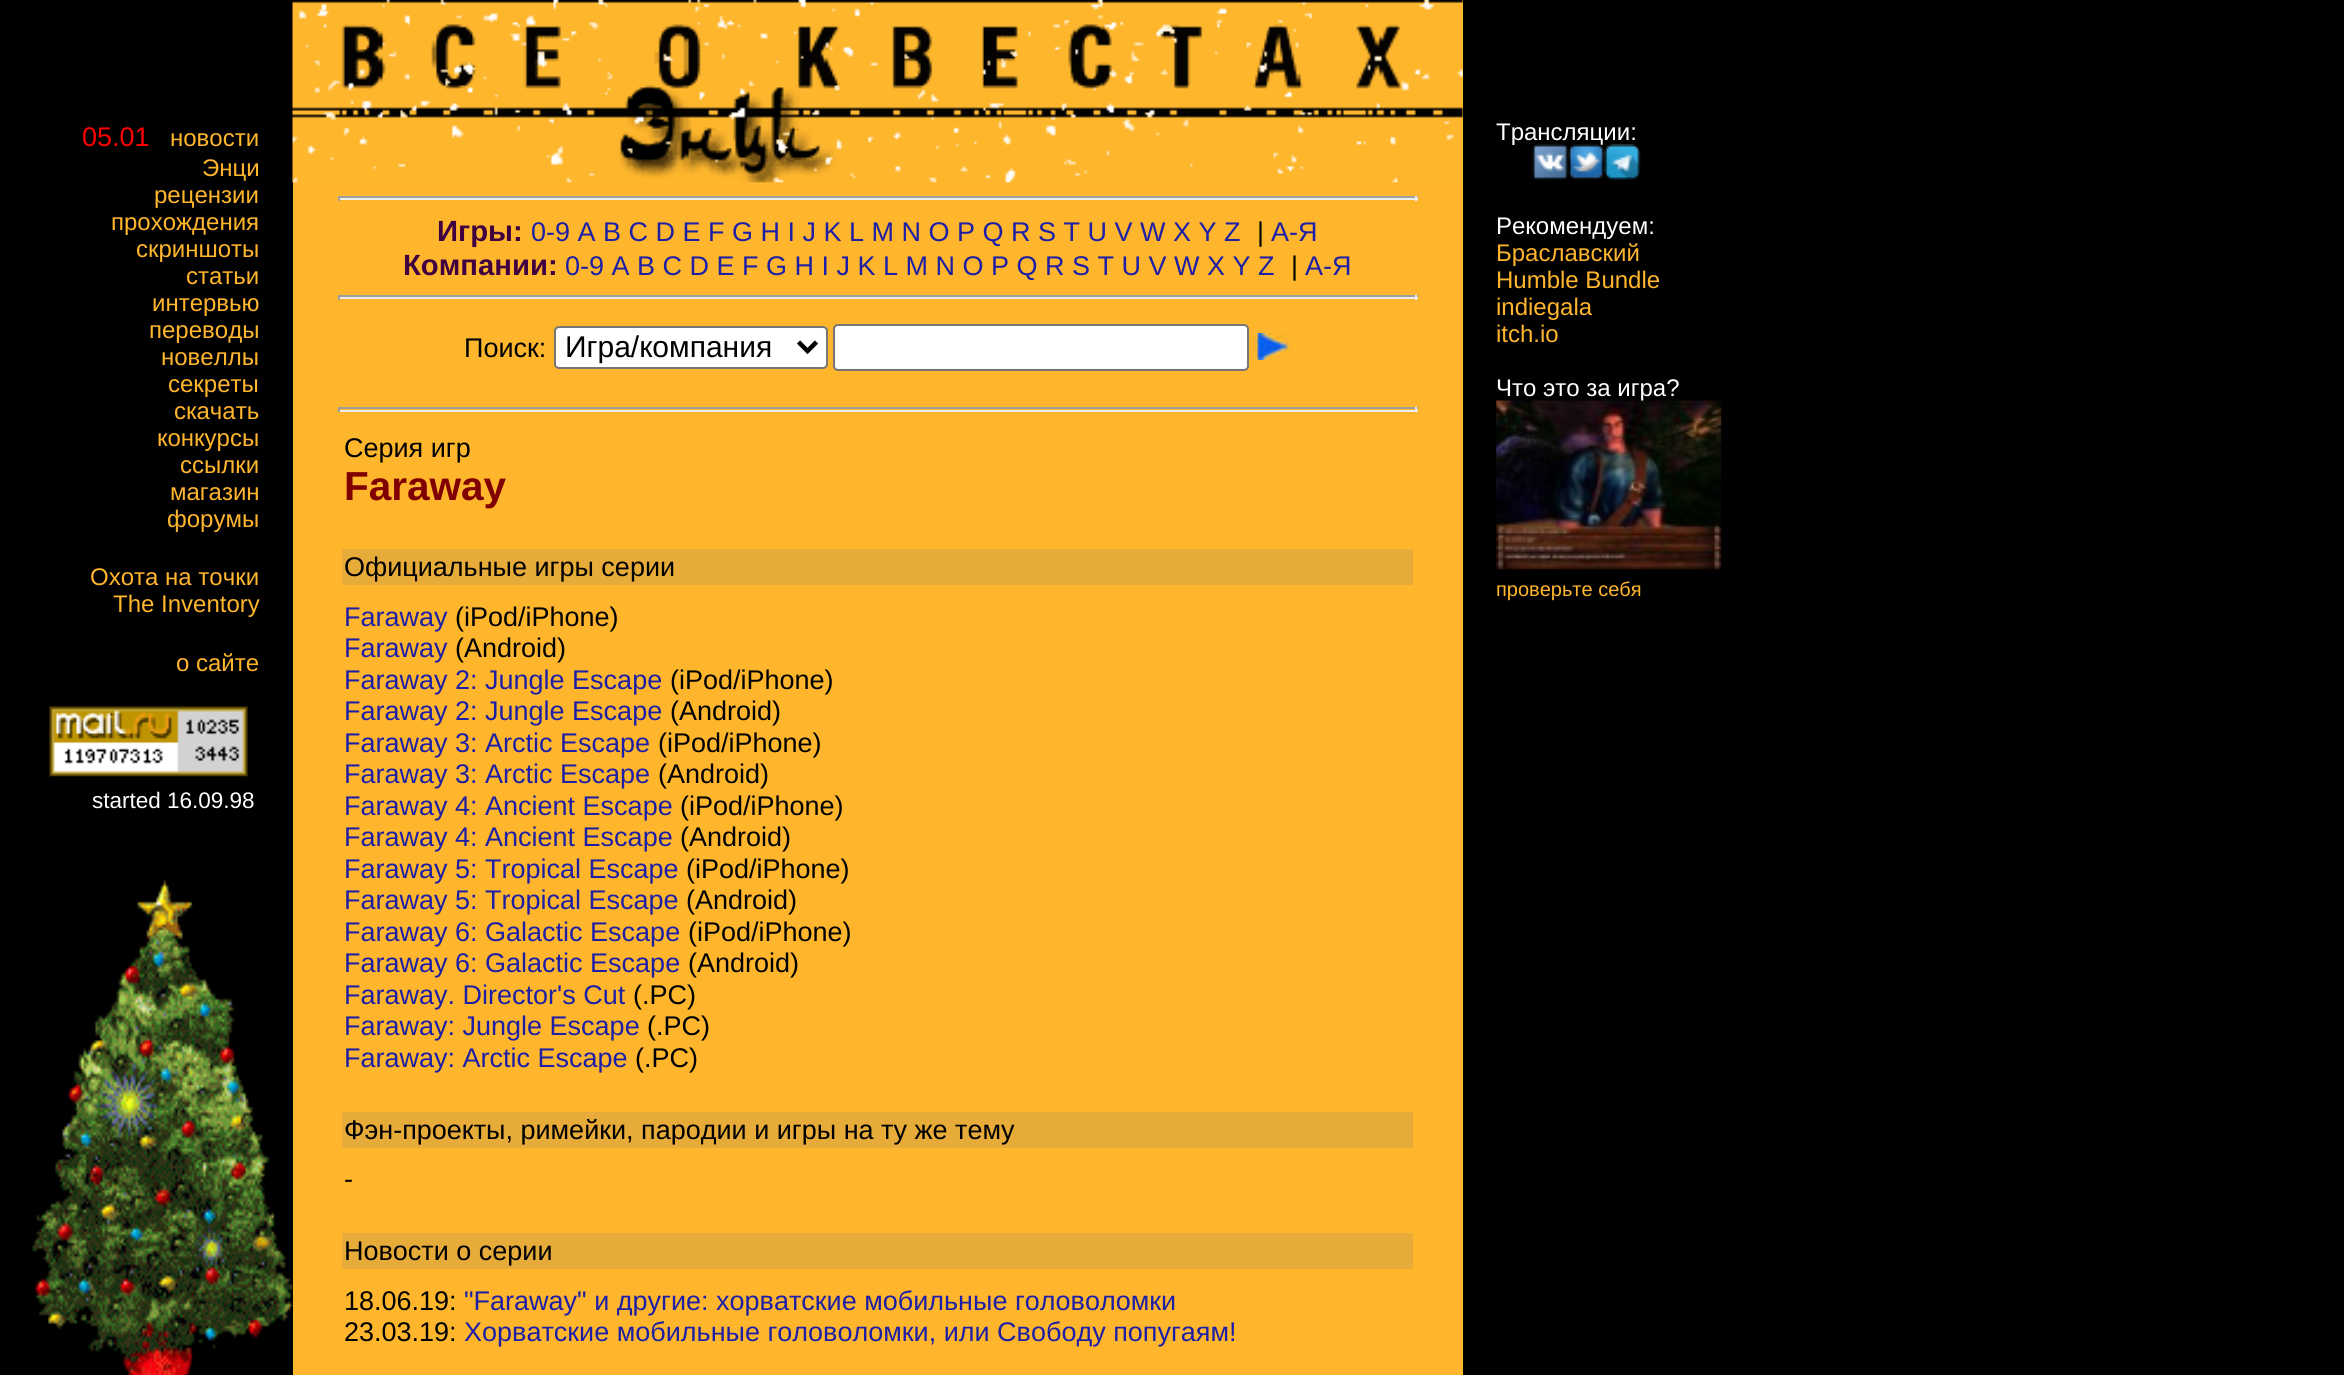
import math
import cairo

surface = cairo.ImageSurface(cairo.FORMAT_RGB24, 2344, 1375)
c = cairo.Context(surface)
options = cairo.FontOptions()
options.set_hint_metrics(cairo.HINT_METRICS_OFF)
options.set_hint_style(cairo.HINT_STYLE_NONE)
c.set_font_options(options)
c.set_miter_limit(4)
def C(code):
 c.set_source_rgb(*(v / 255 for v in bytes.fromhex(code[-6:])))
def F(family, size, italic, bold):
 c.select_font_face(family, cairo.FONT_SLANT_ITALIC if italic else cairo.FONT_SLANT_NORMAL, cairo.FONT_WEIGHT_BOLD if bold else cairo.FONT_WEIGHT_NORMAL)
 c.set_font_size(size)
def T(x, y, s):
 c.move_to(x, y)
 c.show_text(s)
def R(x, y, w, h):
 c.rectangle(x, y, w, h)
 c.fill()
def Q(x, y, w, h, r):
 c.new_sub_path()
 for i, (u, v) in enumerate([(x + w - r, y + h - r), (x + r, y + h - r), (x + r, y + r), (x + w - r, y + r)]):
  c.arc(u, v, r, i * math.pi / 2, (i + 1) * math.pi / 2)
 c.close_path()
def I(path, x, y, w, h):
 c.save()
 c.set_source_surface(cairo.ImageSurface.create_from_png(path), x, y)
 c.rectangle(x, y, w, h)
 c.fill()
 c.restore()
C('000000')
c.paint()
F('Liberation Sans',27,0,0)
C('ff0000')
T(82,146,'05.01')
F('Liberation Sans',24,0,0)
C('ffb62d')
T(170,146,'новости')
T(202,176,'Энци')
T(154,203,'рецензии')
T(111,230,'прохождения')
T(136,257,'скриншоты')
T(186,284,'статьи')
T(152,311,'интервью')
T(149,338,'переводы')
T(161,365,'новеллы')
T(168,392,'секреты')
T(174,419,'скачать')
T(157,446,'конкурсы')
T(180,473,'ссылки')
T(170,500,'магазин')
T(167,527,'форумы')
T(90,585,'Охота на точки')
T(113,612,'The Inventory')
T(176,671,'о сайте')
I('1.png',49,706,199,71)
F('Liberation Sans',22.5,0,0)
C('ffffff')
T(92,808,'started 16.09.98')
I('2.png',31,879,262,496)
C('ffb62d')
R(293,0,1170,1375)
I('3.png',292,0,1171,183)
C('9f9f9f')
R(338,196,1080,2)
C('eeeeee')
R(1415,196,2,5)
R(338,198,1080,2)
C('9f9f9f')
R(338,196,2,5)
F('Liberation Sans',29.25,0,1)
C('400040')
T(437,241,'Игры:')
F('Liberation Sans',27,0,0)
C('1d20a5')
T(531,241,'0-9 A B C D E F G H I J K L M N O P Q R S T U V W X Y Z')
C('000000')
T(1257,241,'|')
C('1d20a5')
T(1271,241,'А-Я')
F('Liberation Sans',29.25,0,1)
C('400040')
T(403,275,'Компании:')
F('Liberation Sans',27,0,0)
C('1d20a5')
T(565,275,'0-9 A B C D E F G H I J K L M N O P Q R S T U V W X Y Z')
C('000000')
T(1291,275,'|')
C('1d20a5')
T(1305,275,'А-Я')
C('9f9f9f')
R(338,295,1080,2)
C('eeeeee')
R(1415,295,2,5)
R(338,297,1080,2)
C('9f9f9f')
R(338,295,2,5)
C('000000')
T(464,357,'Поиск:')
C('ffffff')
Q(555,327,272,41,4)
c.fill_preserve()
C('767676')
c.stroke()
c.new_path()
c.move_to(798.5,342)
c.line_to(807.5,351)
c.line_to(816.5,342)
C('000000')
c.set_line_width(4.5)
c.stroke()
F('Liberation Sans',30,0,0)
T(565,357,'Игра/компания')
C('ffffff')
Q(834,325,414,45,4)
c.fill_preserve()
C('767676')
c.set_line_width(2)
c.stroke()
I('4.png',1253,333,37,27)
C('9f9f9f')
R(338,407,1080,2)
C('eeeeee')
R(1415,407,2,5)
R(338,410,1080,2)
C('9f9f9f')
R(338,407,2,5)
F('Liberation Sans',27,0,0)
C('000000')
T(344,457,'Серия игр')
F('Liberation Sans',40.5,0,1)
C('800000')
T(344,500,'Faraway')
C('e7ab39')
R(342,549,1071,36)
F('Liberation Sans',27,0,0)
C('000000')
T(344,576,'Официальные игры серии')
C('1d20a5')
T(344,626,'Faraway')
C('000000')
T(455,626,'(iPod/iPhone)')
C('1d20a5')
T(344,657,'Faraway')
C('000000')
T(455,657,'(Android)')
C('1d20a5')
T(344,689,'Faraway 2: Jungle Escape')
C('000000')
T(670,689,'(iPod/iPhone)')
C('1d20a5')
T(344,720,'Faraway 2: Jungle Escape')
C('000000')
T(670,720,'(Android)')
C('1d20a5')
T(344,752,'Faraway 3: Arctic Escape')
C('000000')
T(658,752,'(iPod/iPhone)')
C('1d20a5')
T(344,783,'Faraway 3: Arctic Escape')
C('000000')
T(658,783,'(Android)')
C('1d20a5')
T(344,815,'Faraway 4: Ancient Escape')
C('000000')
T(680,815,'(iPod/iPhone)')
C('1d20a5')
T(344,846,'Faraway 4: Ancient Escape')
C('000000')
T(680,846,'(Android)')
C('1d20a5')
T(344,878,'Faraway 5: Tropical Escape')
C('000000')
T(686,878,'(iPod/iPhone)')
C('1d20a5')
T(344,909,'Faraway 5: Tropical Escape')
C('000000')
T(686,909,'(Android)')
C('1d20a5')
T(344,941,'Faraway 6: Galactic Escape')
C('000000')
T(688,941,'(iPod/iPhone)')
C('1d20a5')
T(344,972,'Faraway 6: Galactic Escape')
C('000000')
T(688,972,'(Android)')
C('1d20a5')
T(344,1004,'Faraway. Director\'s Cut')
C('000000')
T(633,1004,'(.PC)')
C('1d20a5')
T(344,1035,'Faraway: Jungle Escape')
C('000000')
T(647,1035,'(.PC)')
C('1d20a5')
T(344,1067,'Faraway: Arctic Escape')
C('000000')
T(635,1067,'(.PC)')
C('e7ab39')
R(342,1112,1071,36)
C('000000')
T(344,1139,'Фэн-проекты, римейки, пародии и игры на ту же тему')
T(344,1188,'-')
C('e7ab39')
R(342,1233,1071,36)
C('000000')
T(344,1260,'Новости о серии')
T(344,1310,'18.06.19:')
C('1d20a5')
T(464,1310,'"Faraway" и другие: хорватские мобильные головоломки')
C('000000')
T(344,1341,'23.03.19:')
C('1d20a5')
T(464,1341,'Хорватские мобильные головоломки, или Свободу попугаям!')
F('Liberation Sans',24,0,0)
C('ffffff')
T(1496,140,'Трансляции:')
I('5.png',1532,144,37,36)
I('6.png',1568,144,37,36)
I('7.png',1604,144,37,36)
T(1496,234,'Рекомендуем:')
C('ffb62d')
T(1496,261,'Браславский')
T(1496,288,'Humble Bundle')
T(1496,315,'indiegala')
T(1496,342,'itch.io')
C('ffffff')
T(1496,396,'Что это за игра?')
I('8.png',1496,400,226,170)
F('Liberation Sans',20,0,0)
C('ffb62d')
T(1496,596,'проверьте себя')
surface.write_to_png('o.png')
